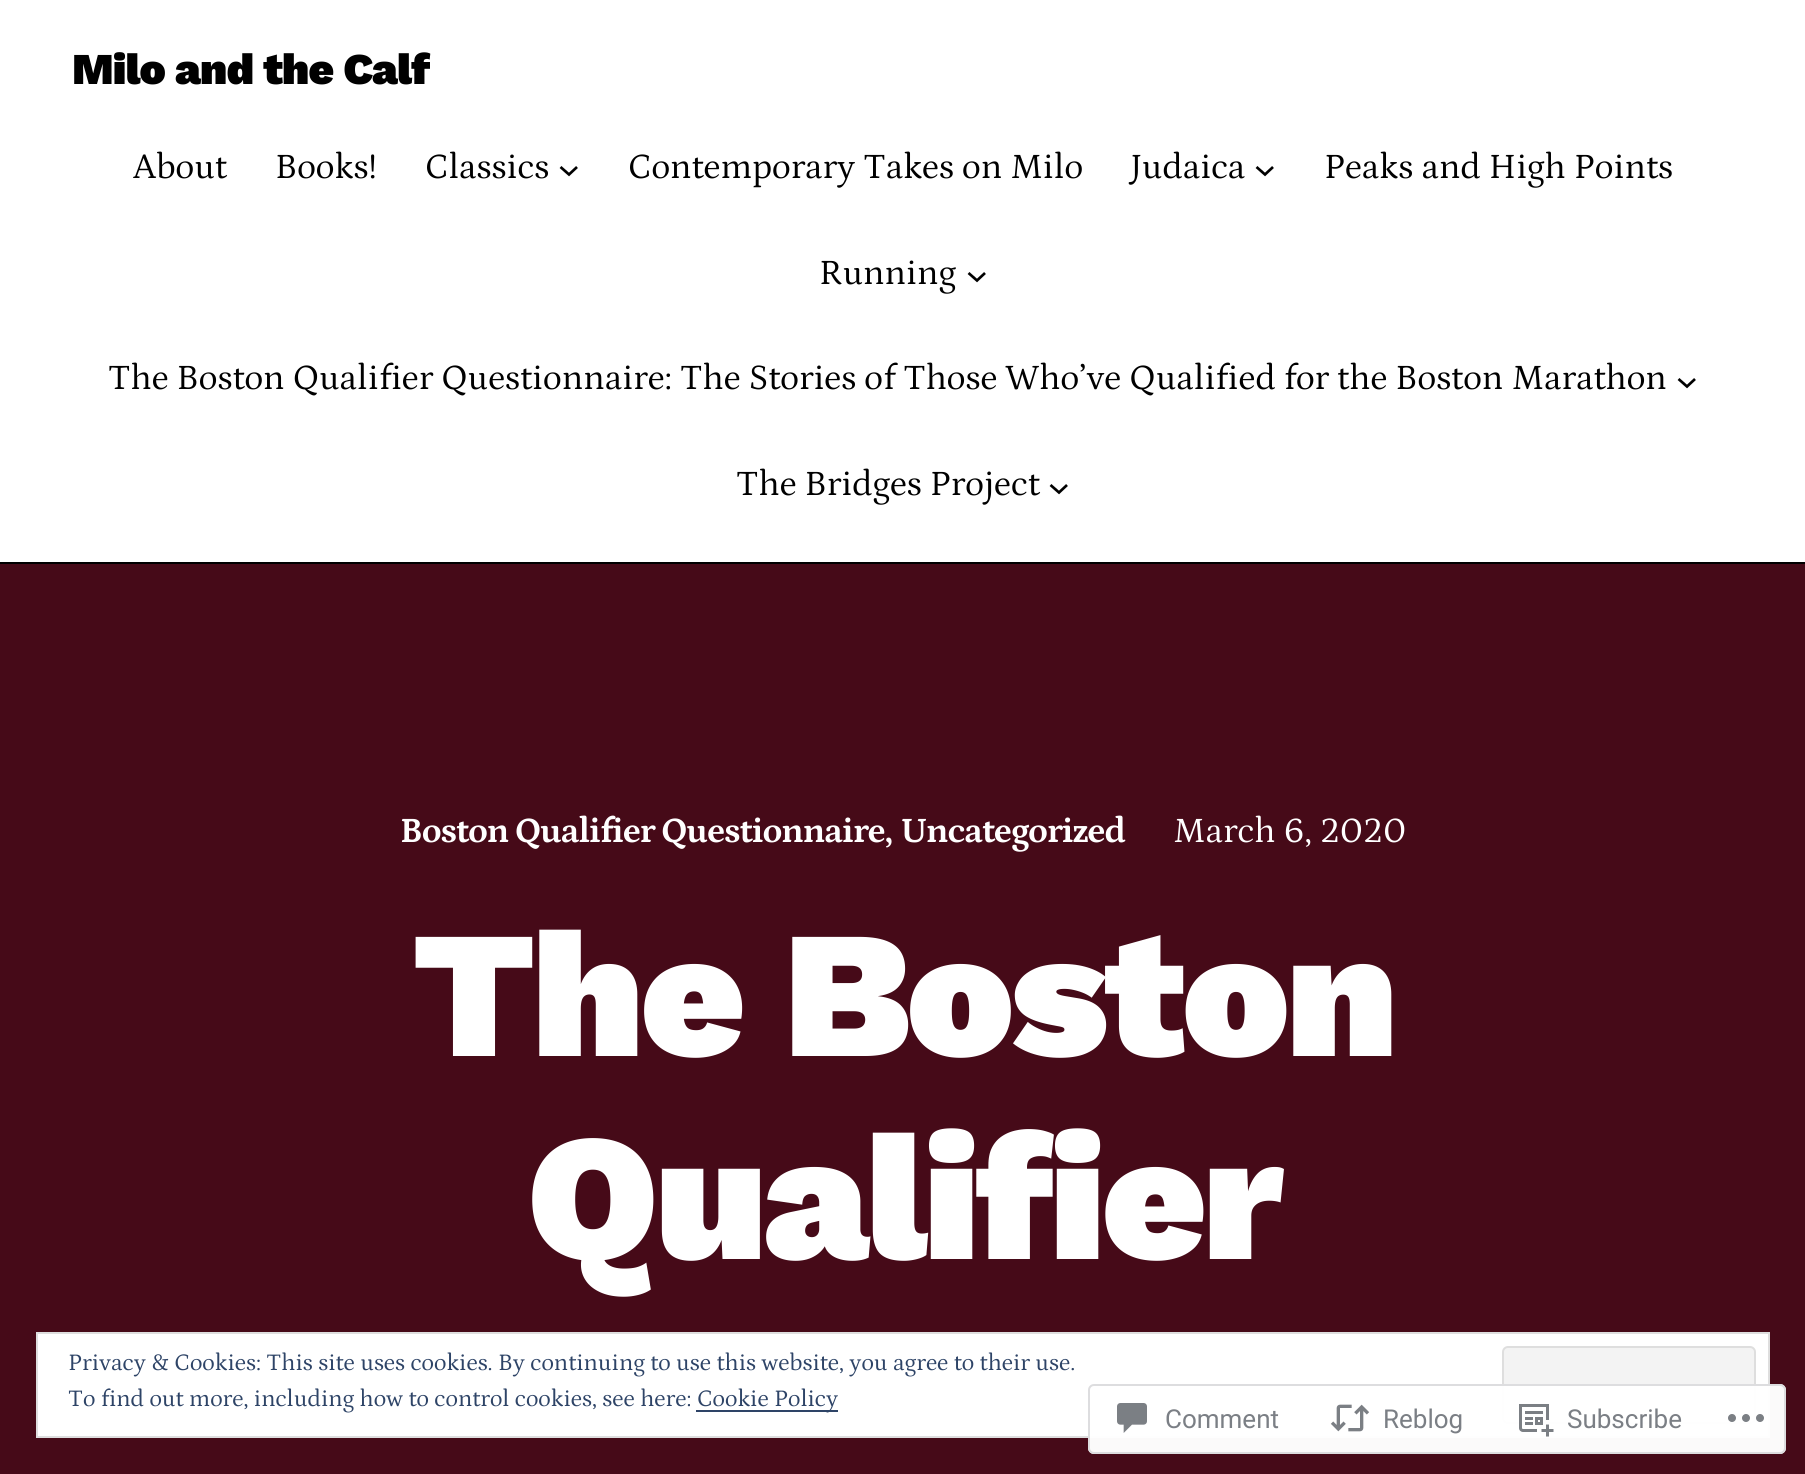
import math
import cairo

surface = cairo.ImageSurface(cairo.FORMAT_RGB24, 1805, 1474)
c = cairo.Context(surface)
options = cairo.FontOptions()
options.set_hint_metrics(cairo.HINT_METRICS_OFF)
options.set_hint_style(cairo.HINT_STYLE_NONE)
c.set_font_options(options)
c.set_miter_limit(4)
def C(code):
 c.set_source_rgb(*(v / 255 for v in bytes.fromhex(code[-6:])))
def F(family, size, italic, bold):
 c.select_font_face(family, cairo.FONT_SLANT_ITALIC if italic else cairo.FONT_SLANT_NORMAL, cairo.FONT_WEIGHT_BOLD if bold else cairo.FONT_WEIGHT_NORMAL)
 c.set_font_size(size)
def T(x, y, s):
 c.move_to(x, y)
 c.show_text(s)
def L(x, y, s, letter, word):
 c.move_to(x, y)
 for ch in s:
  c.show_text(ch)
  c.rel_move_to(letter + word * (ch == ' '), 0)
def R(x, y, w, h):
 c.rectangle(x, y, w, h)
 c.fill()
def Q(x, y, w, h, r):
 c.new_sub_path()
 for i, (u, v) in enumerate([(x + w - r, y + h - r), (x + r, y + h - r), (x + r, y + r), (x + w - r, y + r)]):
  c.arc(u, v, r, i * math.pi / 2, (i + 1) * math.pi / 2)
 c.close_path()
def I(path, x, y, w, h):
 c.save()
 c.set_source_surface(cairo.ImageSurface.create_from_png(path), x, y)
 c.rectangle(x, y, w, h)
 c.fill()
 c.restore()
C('ffffff')
c.paint()
F('Work Sans Black',44,0,0)
C('000000')
L(72,84,'Milo and the Calf',-.9,0)
F('Petrona',36,0,0)
T(133,178,'About')
T(275,178,'Books!')
T(425,178,'Classics')
c.new_path()
c.move_to(560.5,167)
c.line_to(569,174.5)
c.line_to(577,167)
c.set_line_width(2.7)
c.stroke()
T(628,178,'Contemporary Takes on Milo')
T(1131,178,'Judaica')
c.new_path()
c.move_to(1256.5,167)
c.line_to(1265,174.5)
c.line_to(1273,167)
c.stroke()
T(1324,178,'Peaks and High Points')
T(819,284,'Running')
c.new_path()
c.move_to(968.5,273)
c.line_to(977,280.5)
c.line_to(985,273)
c.stroke()
T(108,389,'The Boston Qualifier Questionnaire: The Stories of Those Who’ve Qualified for the Boston Marathon')
c.new_path()
c.move_to(1678.5,379)
c.line_to(1687,386.5)
c.line_to(1695,379)
c.stroke()
T(736,495,'The Bridges Project')
c.new_path()
c.move_to(1050.5,485)
c.line_to(1059,492.5)
c.line_to(1067,485)
c.stroke()
R(0,562,1805,2)
C('460a18')
R(0,564,1805,910)
F('Petrona',36,0,1)
C('ffffff')
L(400,842,'Boston Qualifier Questionnaire',-1.1,0)
T(885,842,',')
L(901,842,'Uncategorized',-1.1,0)
F('Petrona',36,0,0)
T(1173,842,'March 6, 2020')
F('Work Sans Black',180.5,0,0)
L(412,1056,'The Boston',-3.6,0)
L(527,1259,'Qualifier',-3.6,0)
c.rectangle(37,1333,1732,104)
c.fill_preserve()
C('dedede')
c.set_line_width(2)
c.stroke()
F('Petrona',24,0,0)
C('2e4467')
T(68,1370,'Privacy & Cookies: This site uses cookies. By continuing to use this website, you agree to their use.')
C('f3f3f3')
Q(1503,1347,252,76,5)
c.fill_preserve()
C('dedede')
c.stroke()
C('2e4467')
T(68,1406,'To find out more, including how to control cookies, see here:')
R(696,1410,142,2)
T(697,1406,'Cookie Policy')
c.set_source_rgba(1,1,1,0.98)
Q(1088,1384,698,70,6)
c.fill()
Q(1089,1385,696,68,5)
c.set_source_rgba(0.863,0.863,0.871,0.98)
c.stroke()
I('1.png',1117,1403,30,30)
F('Roboto',26,0,0)
C('7b7f85')
T(1165,1428,'Comment')
I('2.png',1330,1404,40,28)
T(1383,1428,'Reblog')
I('3.png',1519,1404,35,33)
T(1567,1428,'Subscribe')
I('4.png',1728,1414,36,8)
surface.write_to_png('o.png')
